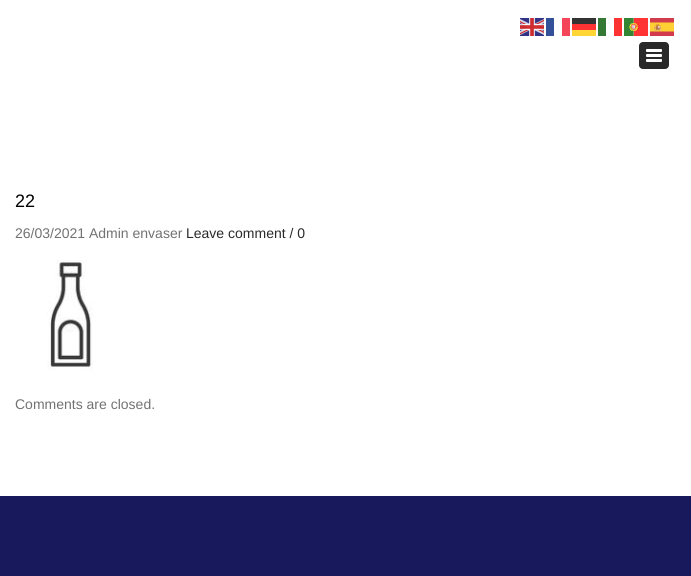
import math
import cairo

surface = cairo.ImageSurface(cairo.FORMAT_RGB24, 691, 576)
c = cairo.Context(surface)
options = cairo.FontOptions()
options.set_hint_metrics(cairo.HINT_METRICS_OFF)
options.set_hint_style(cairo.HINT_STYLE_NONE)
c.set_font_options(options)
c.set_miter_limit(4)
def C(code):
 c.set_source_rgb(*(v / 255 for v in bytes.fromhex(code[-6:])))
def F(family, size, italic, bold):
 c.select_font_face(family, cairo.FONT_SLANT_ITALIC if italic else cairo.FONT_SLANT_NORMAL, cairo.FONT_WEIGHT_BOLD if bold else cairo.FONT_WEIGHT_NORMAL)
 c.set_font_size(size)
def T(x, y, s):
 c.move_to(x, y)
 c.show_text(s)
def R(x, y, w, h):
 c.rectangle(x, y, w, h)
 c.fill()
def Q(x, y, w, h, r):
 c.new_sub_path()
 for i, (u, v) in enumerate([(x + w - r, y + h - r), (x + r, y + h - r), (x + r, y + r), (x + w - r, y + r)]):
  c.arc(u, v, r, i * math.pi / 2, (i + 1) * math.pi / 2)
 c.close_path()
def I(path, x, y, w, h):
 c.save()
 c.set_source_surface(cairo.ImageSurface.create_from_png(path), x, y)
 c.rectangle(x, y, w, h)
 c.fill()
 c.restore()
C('ffffff')
c.paint()
I('1.png',520,18,24,18)
C('335199')
R(546,18,8,18)
C('f54659')
R(562,18,8,18)
C('333333')
R(572,18,24,6)
C('337933')
R(598,18,8,18)
C('fd3333')
R(614,18,8,18)
I('2.png',624,18,24,18)
I('3.png',650,18,24,18)
C('ff3333')
R(572,24,24,6)
C('ffd633')
R(572,30,24,6)
C('292929')
Q(639,42,30,27,4)
c.fill()
C('ffffff')
Q(646,49,16,3,1)
c.fill()
Q(646,54,16,3,1)
c.fill()
Q(646,59,16,3,1)
c.fill()
F('Liberation Sans',18,0,0)
C('000000')
T(15,207,'22')
F('Liberation Sans',14,0,0)
C('727272')
T(15,238,'26/03/2021 Admin envaser')
C('292929')
T(186,238,'Leave comment / 0')
I('4.png',47,260,46,111)
C('727272')
T(15,409,'Comments are closed.')
C('18185c')
R(0,496,691,80)
surface.write_to_png('o.png')
